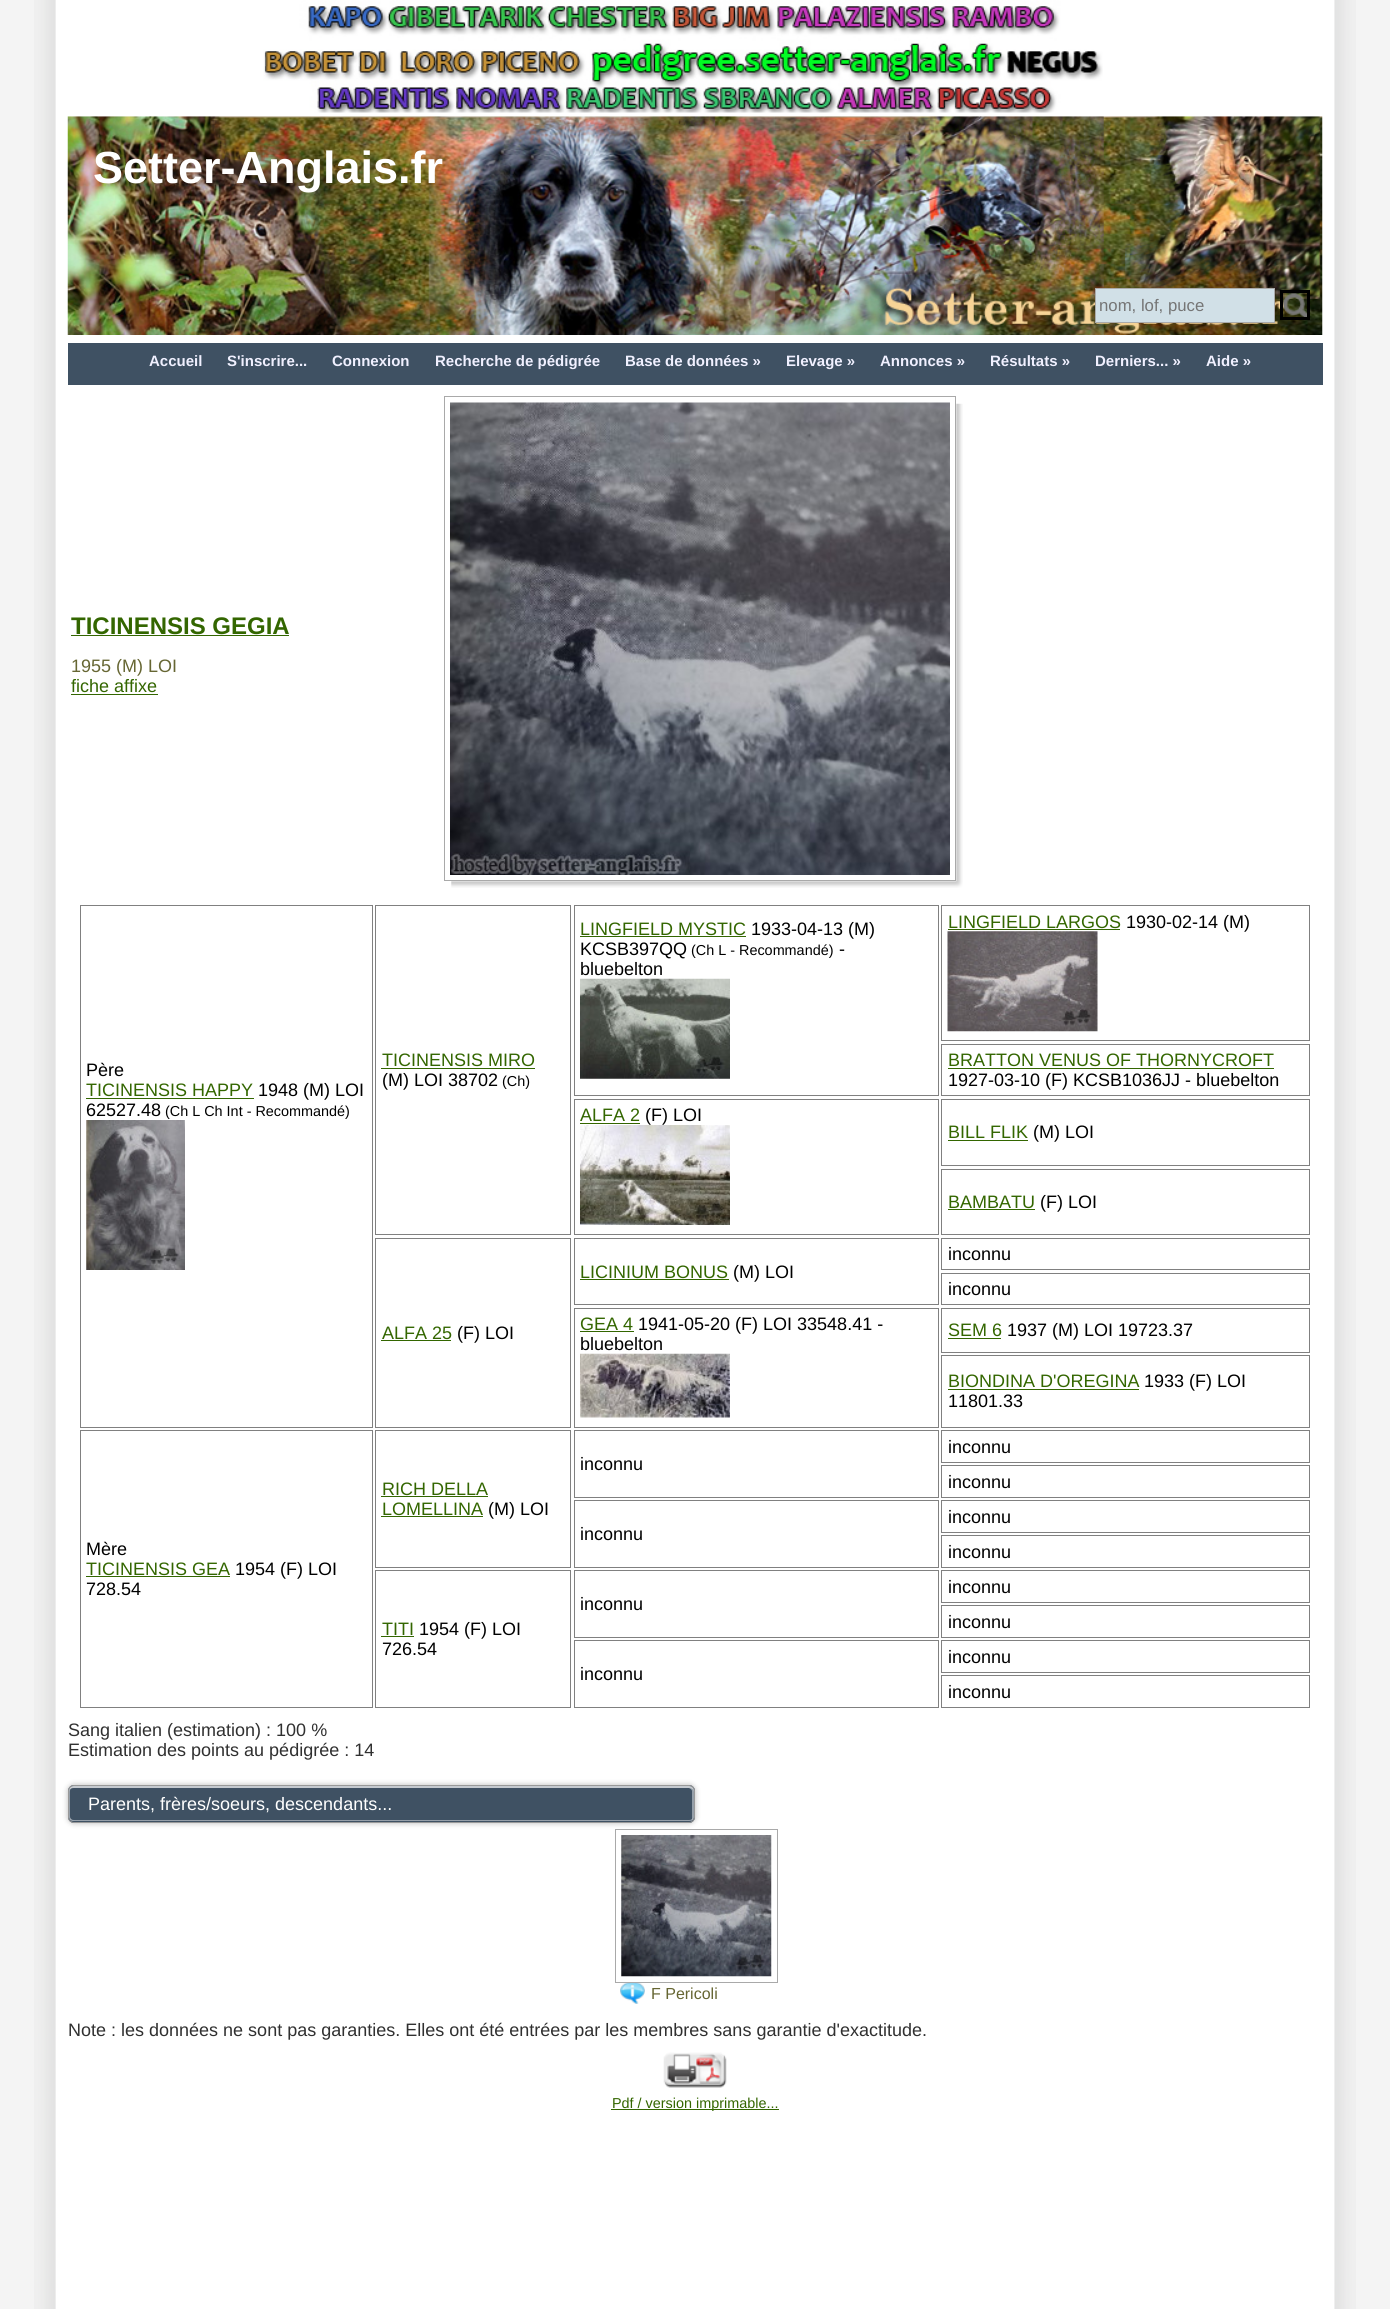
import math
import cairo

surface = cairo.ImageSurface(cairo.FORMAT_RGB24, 1390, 2309)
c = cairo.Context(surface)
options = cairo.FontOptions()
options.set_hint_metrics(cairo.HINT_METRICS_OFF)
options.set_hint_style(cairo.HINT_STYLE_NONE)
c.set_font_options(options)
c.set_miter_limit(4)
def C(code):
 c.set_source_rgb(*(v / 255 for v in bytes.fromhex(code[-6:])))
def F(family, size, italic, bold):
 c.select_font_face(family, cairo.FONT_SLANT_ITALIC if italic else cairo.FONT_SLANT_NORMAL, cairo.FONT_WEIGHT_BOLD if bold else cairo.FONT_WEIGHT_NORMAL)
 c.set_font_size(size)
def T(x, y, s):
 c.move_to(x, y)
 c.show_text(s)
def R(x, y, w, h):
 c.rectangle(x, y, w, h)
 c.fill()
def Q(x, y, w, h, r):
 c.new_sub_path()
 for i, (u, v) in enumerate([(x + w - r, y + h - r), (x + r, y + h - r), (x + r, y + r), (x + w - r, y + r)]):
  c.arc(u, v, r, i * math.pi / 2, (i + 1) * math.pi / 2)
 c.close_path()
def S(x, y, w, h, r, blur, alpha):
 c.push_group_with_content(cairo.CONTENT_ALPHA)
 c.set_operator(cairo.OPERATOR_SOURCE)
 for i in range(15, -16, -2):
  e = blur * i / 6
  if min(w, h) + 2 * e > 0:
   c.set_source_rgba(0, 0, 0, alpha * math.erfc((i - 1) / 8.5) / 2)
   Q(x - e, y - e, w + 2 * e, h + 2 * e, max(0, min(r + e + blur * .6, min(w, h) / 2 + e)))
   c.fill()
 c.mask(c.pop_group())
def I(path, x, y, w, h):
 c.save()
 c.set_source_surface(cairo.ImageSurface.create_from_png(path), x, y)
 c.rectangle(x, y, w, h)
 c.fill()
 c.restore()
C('f4f4f4')
c.paint()
I('1.png',34,0,1322,2309)
I('2.png',263,0,840,113)
I('3.png',67,116,1256,219)
F('Liberation Sans',45,0,1)
C('ffffff')
T(93,183,'Setter-Anglais.fr')
C('d1e0e7')
c.rectangle(1095.5,288.5,179,34)
c.fill_preserve()
C('aaaaaa')
c.set_line_width(1)
c.stroke()
F('Liberation Sans',16.75,0,0)
C('757575')
T(1099,311,'nom, lof, puce')
I('4.png',1283,293,24,24)
c.rectangle(1281.5,291.5,27,27)
C('000000')
c.set_line_width(3)
c.stroke()
C('3f5163')
R(68,343,1255,42)
F('Liberation Sans',15,0,1)
C('f0f0ff')
T(149,366,'Accueil')
T(227,366,'S\'inscrire...')
T(332,366,'Connexion')
T(435,366,'Recherche de pédigrée')
T(625,366,'Base de données »')
T(786,366,'Elevage »')
T(880,366,'Annonces »')
T(990,366,'Résultats »')
T(1095,366,'Derniers... »')
T(1206,366,'Aide »')
F('Liberation Sans',24,0,1)
C('336600')
T(71,634,'TICINENSIS GEGIA')
R(71,635,218,1)
F('Liberation Sans',18,0,0)
C('666633')
T(71,672,'1955 (M) LOI')
C('336600')
T(71,692,'fiche affixe')
R(71,694,87,1)
I('5.png',451,403,512,485)
c.rectangle(444.5,396.5,511,484)
C('a9a9a9')
c.set_line_width(1)
c.stroke()
I('6.png',450,402,500,473)
c.rectangle(574.5,905.5,364,190)
C('808080')
c.stroke()
C('336600')
T(580,935,'LINGFIELD MYSTIC')
R(580,936,166,1)
C('000000')
T(751,935,'1933-04-13 (M)')
T(580,955,'KCSB397QQ')
F('Liberation Sans',14.4,0,0)
T(691,955,'(Ch L - Recommandé)')
F('Liberation Sans',18,0,0)
T(839,955,'-')
T(580,975,'bluebelton')
I('7.png',580,978,150,101)
c.rectangle(941.5,905.5,368,135)
C('808080')
c.stroke()
C('336600')
T(948,928,'LINGFIELD LARGOS')
R(948,929,172,1)
C('000000')
T(1126,928,'1930-02-14 (M)')
I('8.png',947,931,151,101)
c.rectangle(80.5,905.5,292,522)
C('808080')
c.stroke()
C('000000')
T(86,1076,'Père')
C('336600')
T(86,1096,'TICINENSIS HAPPY')
R(86,1098,168,1)
C('000000')
T(258,1096,'1948 (M) LOI')
T(86,1116,'62527.48')
F('Liberation Sans',14.4,0,0)
T(165,1116,'(Ch L Ch Int - Recommandé)')
I('9.png',86,1120,99,150)
c.rectangle(375.5,905.5,195,329)
C('808080')
c.stroke()
F('Liberation Sans',18,0,0)
C('336600')
T(382,1066,'TICINENSIS MIRO')
R(381,1068,154,1)
C('000000')
T(382,1086,'(M) LOI 38702')
F('Liberation Sans',14.4,0,0)
T(502,1086,'(Ch)')
c.rectangle(941.5,1044.5,368,51)
C('808080')
c.stroke()
F('Liberation Sans',18,0,0)
C('336600')
T(948,1066,'BRATTON VENUS OF THORNYCROFT')
R(948,1068,326,1)
C('000000')
T(948,1086,'1927-03-10 (F) KCSB1036JJ - bluebelton')
c.rectangle(574.5,1099.5,364,135)
C('808080')
c.stroke()
C('336600')
T(580,1121,'ALFA 2')
R(580,1123,60,1)
C('000000')
T(645,1121,'(F) LOI')
I('10.png',580,1125,150,100)
c.rectangle(941.5,1099.5,368,66)
C('808080')
c.stroke()
C('336600')
T(948,1138,'BILL FLIK')
R(948,1140,80,1)
C('000000')
T(1033,1138,'(M) LOI')
c.rectangle(941.5,1169.5,368,65)
C('808080')
c.stroke()
C('336600')
T(948,1208,'BAMBATU')
R(948,1209,87,1)
C('000000')
T(1040,1208,'(F) LOI')
c.rectangle(941.5,1238.5,368,31)
C('808080')
c.stroke()
C('000000')
T(948,1260,'inconnu')
c.rectangle(574.5,1238.5,364,66)
C('808080')
c.stroke()
C('336600')
T(580,1278,'LICINIUM BONUS')
R(580,1279,149,1)
C('000000')
T(733,1278,'(M) LOI')
c.rectangle(375.5,1238.5,195,189)
C('808080')
c.stroke()
C('336600')
T(382,1339,'ALFA 25')
R(381,1340,70,1)
C('000000')
T(457,1339,'(F) LOI')
c.rectangle(941.5,1273.5,368,31)
C('808080')
c.stroke()
C('000000')
T(948,1295,'inconnu')
c.rectangle(574.5,1308.5,364,119)
C('808080')
c.stroke()
C('336600')
T(580,1330,'GEA 4')
R(580,1331,54,1)
C('000000')
T(638,1330,'1941-05-20 (F) LOI 33548.41 -')
T(580,1350,'bluebelton')
I('11.png',580,1353,150,65)
c.rectangle(941.5,1308.5,368,44)
C('808080')
c.stroke()
C('336600')
T(948,1336,'SEM 6')
R(948,1338,53,1)
C('000000')
T(1007,1336,'1937 (M) LOI 19723.37')
c.rectangle(941.5,1355.5,368,72)
C('808080')
c.stroke()
C('336600')
T(948,1387,'BIONDINA D\'OREGINA')
R(948,1389,191,1)
C('000000')
T(1144,1387,'1933 (F) LOI')
T(948,1407,'11801.33')
c.rectangle(941.5,1430.5,368,32)
C('808080')
c.stroke()
C('000000')
T(948,1453,'inconnu')
c.rectangle(574.5,1430.5,364,67)
C('808080')
c.stroke()
C('000000')
T(580,1470,'inconnu')
c.rectangle(375.5,1430.5,195,137)
C('808080')
c.stroke()
C('336600')
T(382,1495,'RICH DELLA')
R(381,1496,107,1)
T(382,1515,'LOMELLINA')
R(381,1516,102,1)
C('000000')
T(488,1515,'(M) LOI')
c.rectangle(80.5,1430.5,292,277)
C('808080')
c.stroke()
C('000000')
T(86,1555,'Mère')
C('336600')
T(86,1575,'TICINENSIS GEA')
R(86,1576,144,1)
C('000000')
T(235,1575,'1954 (F) LOI')
T(86,1595,'728.54')
c.rectangle(941.5,1465.5,368,32)
C('808080')
c.stroke()
C('000000')
T(948,1488,'inconnu')
c.rectangle(941.5,1500.5,368,32)
C('808080')
c.stroke()
C('000000')
T(948,1523,'inconnu')
c.rectangle(574.5,1500.5,364,67)
C('808080')
c.stroke()
C('000000')
T(580,1540,'inconnu')
c.rectangle(941.5,1535.5,368,32)
C('808080')
c.stroke()
C('000000')
T(948,1558,'inconnu')
c.rectangle(941.5,1570.5,368,32)
C('808080')
c.stroke()
C('000000')
T(948,1593,'inconnu')
c.rectangle(574.5,1570.5,364,67)
C('808080')
c.stroke()
C('000000')
T(580,1610,'inconnu')
c.rectangle(375.5,1570.5,195,137)
C('808080')
c.stroke()
C('336600')
T(382,1635,'TITI')
R(381,1636,33,1)
C('000000')
T(419,1635,'1954 (F) LOI')
T(382,1655,'726.54')
c.rectangle(941.5,1605.5,368,32)
C('808080')
c.stroke()
C('000000')
T(948,1628,'inconnu')
c.rectangle(941.5,1640.5,368,32)
C('808080')
c.stroke()
C('000000')
T(948,1663,'inconnu')
c.rectangle(574.5,1640.5,364,67)
C('808080')
c.stroke()
C('000000')
T(580,1680,'inconnu')
c.rectangle(941.5,1675.5,368,32)
C('808080')
c.stroke()
C('000000')
T(948,1698,'inconnu')
C('303030')
T(68,1736,'Sang italien (estimation) : 100 %')
T(68,1756,'Estimation des points au pédigrée : 14')
C('000000')
S(68,1785,627,38,6,3,.28)
C('3f5163')
Q(68,1785,627,38,6)
c.fill()
C('959fa9')
c.new_path()
c.move_to(72,1788)
c.line_to(689,1788)
c.curve_to(691,1789,692,1790,692,1791)
c.line_to(692,1819)
c.line_to(691,1821)
c.curve_to(693,1820,694,1818,694,1816)
c.line_to(694,1791)
c.curve_to(694,1788,692,1786,689,1786)
c.line_to(74,1786)
c.curve_to(72,1786,70,1787,69,1789)
c.close_path()
c.fill()
c.set_source_rgba(1,1,1,0.45)
c.new_path()
c.move_to(74,1786)
c.curve_to(71,1786,69,1788,69,1791)
c.line_to(69,1816)
c.curve_to(69,1819,71,1821,74,1821)
c.line_to(75,1821)
c.curve_to(72,1821,70,1819,70,1816)
c.line_to(70,1791)
c.curve_to(70,1788,72,1786,75,1786)
c.close_path()
c.fill()
c.new_path()
c.move_to(69,1815)
c.line_to(69,1816)
c.curve_to(69,1819,71,1821,74,1821)
c.line_to(689,1821)
c.curve_to(692,1821,694,1819,694,1816)
c.line_to(694,1815)
c.curve_to(694,1818,692,1820,689,1820)
c.line_to(74,1820)
c.curve_to(71,1820,69,1818,69,1815)
c.close_path()
c.fill()
c.new_path()
c.move_to(74,1788)
c.line_to(689,1788)
c.curve_to(692,1788,694,1790,694,1792)
c.line_to(694,1791)
c.curve_to(694,1788,692,1786,689,1786)
c.line_to(74,1786)
c.curve_to(71,1786,69,1788,69,1791)
c.line_to(69,1792)
c.curve_to(69,1790,71,1788,74,1788)
c.close_path()
c.fill()
Q(68.5,1785.5,626,37,5.5)
C('999999')
c.stroke()
C('ffffff')
T(88,1810,'Parents, frères/soeurs, descendants...')
c.rectangle(615.5,1829.5,162,153)
C('a9a9a9')
c.stroke()
I('12.png',621,1835,151,142)
I('13.png',620,1983,25,21)
F('Liberation Sans',16,0,0)
C('666633')
T(651,1999,'F Pericoli')
F('Liberation Sans',18,0,0)
C('303030')
T(68,2036,'Note : les données ne sont pas garanties. Elles ont été entrées par les membres sans garantie d\'exactitude.')
I('14.png',663,2052,64,36)
C('336600')
R(611,2109,168,1)
F('Liberation Sans',14.4,0,0)
T(612,2108,'Pdf / version imprimable...')
surface.write_to_png('o.png')
